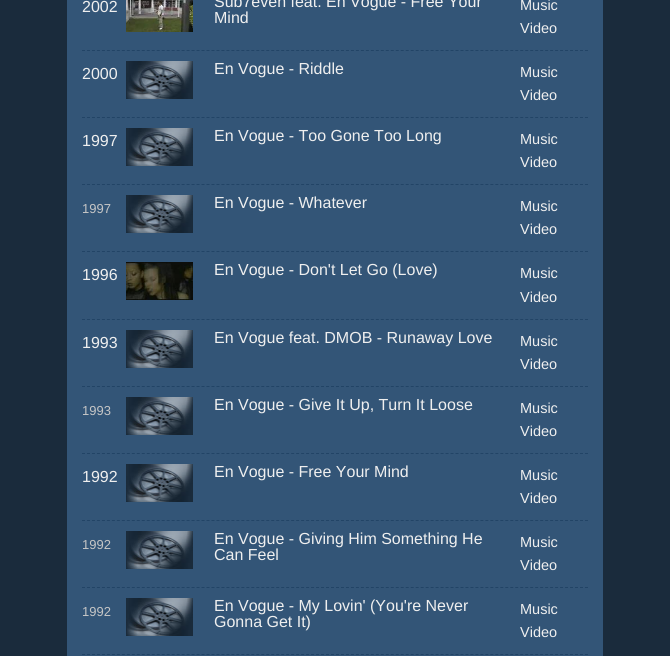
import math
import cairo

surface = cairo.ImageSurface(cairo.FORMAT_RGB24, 670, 656)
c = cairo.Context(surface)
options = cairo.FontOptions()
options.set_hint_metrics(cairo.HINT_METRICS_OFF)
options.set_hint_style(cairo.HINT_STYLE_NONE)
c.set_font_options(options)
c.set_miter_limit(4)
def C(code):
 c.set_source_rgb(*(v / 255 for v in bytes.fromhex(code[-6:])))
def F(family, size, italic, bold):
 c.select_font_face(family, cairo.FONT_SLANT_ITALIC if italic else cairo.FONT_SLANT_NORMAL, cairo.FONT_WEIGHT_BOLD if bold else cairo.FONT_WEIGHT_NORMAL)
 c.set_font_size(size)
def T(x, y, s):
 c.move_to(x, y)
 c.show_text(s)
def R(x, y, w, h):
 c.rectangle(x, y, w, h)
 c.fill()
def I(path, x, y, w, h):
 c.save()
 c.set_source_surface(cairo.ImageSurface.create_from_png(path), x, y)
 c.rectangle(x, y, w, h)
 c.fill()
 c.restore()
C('1a2b3c')
c.paint()
C('335577')
R(67,0,536,656)
c.new_path()
c.move_to(82,50.5)
c.line_to(588,50.5)
C('224466')
c.set_line_width(1)
c.set_dash([3,1.98])
c.stroke()
F('Liberation Sans',16,0,0)
C('efefef')
T(82,12,'2002')
I('1.png',126,0,67,32)
T(214,7,'Sub7even feat. En Vogue - Free Your')
T(214,23,'Mind')
F('Liberation Sans',14.5,0,0)
T(520,10,'Music')
T(520,33,'Video')
c.new_path()
c.move_to(82,117.5)
c.line_to(588,117.5)
C('224466')
c.stroke()
F('Liberation Sans',16,0,0)
C('efefef')
T(82,79,'2000')
I('2.png',126,61,67,38)
T(214,74,'En Vogue - Riddle')
F('Liberation Sans',14.5,0,0)
T(520,77,'Music')
T(520,100,'Video')
c.new_path()
c.move_to(82,184.5)
c.line_to(588,184.5)
C('224466')
c.stroke()
F('Liberation Sans',16,0,0)
C('efefef')
T(82,146,'1997')
I('2.png',126,128,67,38)
T(214,141,'En Vogue - Too Gone Too Long')
F('Liberation Sans',14.5,0,0)
T(520,144,'Music')
T(520,167,'Video')
c.new_path()
c.move_to(82,251.5)
c.line_to(588,251.5)
C('224466')
c.stroke()
F('Liberation Sans',13,0,0)
C('c6c6c6')
T(82,213,'1997')
I('2.png',126,195,67,38)
F('Liberation Sans',16,0,0)
C('efefef')
T(214,208,'En Vogue - Whatever')
F('Liberation Sans',14.5,0,0)
T(520,211,'Music')
T(520,234,'Video')
c.new_path()
c.move_to(82,319.5)
c.line_to(588,319.5)
C('224466')
c.stroke()
F('Liberation Sans',16,0,0)
C('efefef')
T(82,280,'1996')
I('3.png',126,262,67,38)
T(214,275,'En Vogue - Don\'t Let Go (Love)')
F('Liberation Sans',14.5,0,0)
T(520,278,'Music')
T(520,302,'Video')
c.new_path()
c.move_to(82,386.5)
c.line_to(588,386.5)
C('224466')
c.stroke()
F('Liberation Sans',16,0,0)
C('efefef')
T(82,348,'1993')
I('2.png',126,330,67,38)
T(214,343,'En Vogue feat. DMOB - Runaway Love')
F('Liberation Sans',14.5,0,0)
T(520,346,'Music')
T(520,369,'Video')
c.new_path()
c.move_to(82,453.5)
c.line_to(588,453.5)
C('224466')
c.stroke()
F('Liberation Sans',13,0,0)
C('c6c6c6')
T(82,415,'1993')
I('2.png',126,397,67,38)
F('Liberation Sans',16,0,0)
C('efefef')
T(214,410,'En Vogue - Give It Up, Turn It Loose')
F('Liberation Sans',14.5,0,0)
T(520,413,'Music')
T(520,436,'Video')
c.new_path()
c.move_to(82,520.5)
c.line_to(588,520.5)
C('224466')
c.stroke()
F('Liberation Sans',16,0,0)
C('efefef')
T(82,482,'1992')
I('2.png',126,464,67,38)
T(214,477,'En Vogue - Free Your Mind')
F('Liberation Sans',14.5,0,0)
T(520,480,'Music')
T(520,503,'Video')
c.new_path()
c.move_to(82,587.5)
c.line_to(588,587.5)
C('224466')
c.stroke()
F('Liberation Sans',13,0,0)
C('c6c6c6')
T(82,549,'1992')
I('2.png',126,531,67,38)
F('Liberation Sans',16,0,0)
C('efefef')
T(214,544,'En Vogue - Giving Him Something He')
T(214,560,'Can Feel')
F('Liberation Sans',14.5,0,0)
T(520,547,'Music')
T(520,570,'Video')
c.new_path()
c.move_to(82,654.5)
c.line_to(588,654.5)
C('224466')
c.stroke()
F('Liberation Sans',13,0,0)
C('c6c6c6')
T(82,616,'1992')
I('2.png',126,598,67,38)
F('Liberation Sans',16,0,0)
C('efefef')
T(214,611,'En Vogue - My Lovin\' (You\'re Never')
T(214,627,'Gonna Get It)')
F('Liberation Sans',14.5,0,0)
T(520,614,'Music')
T(520,637,'Video')
surface.write_to_png('o.png')
